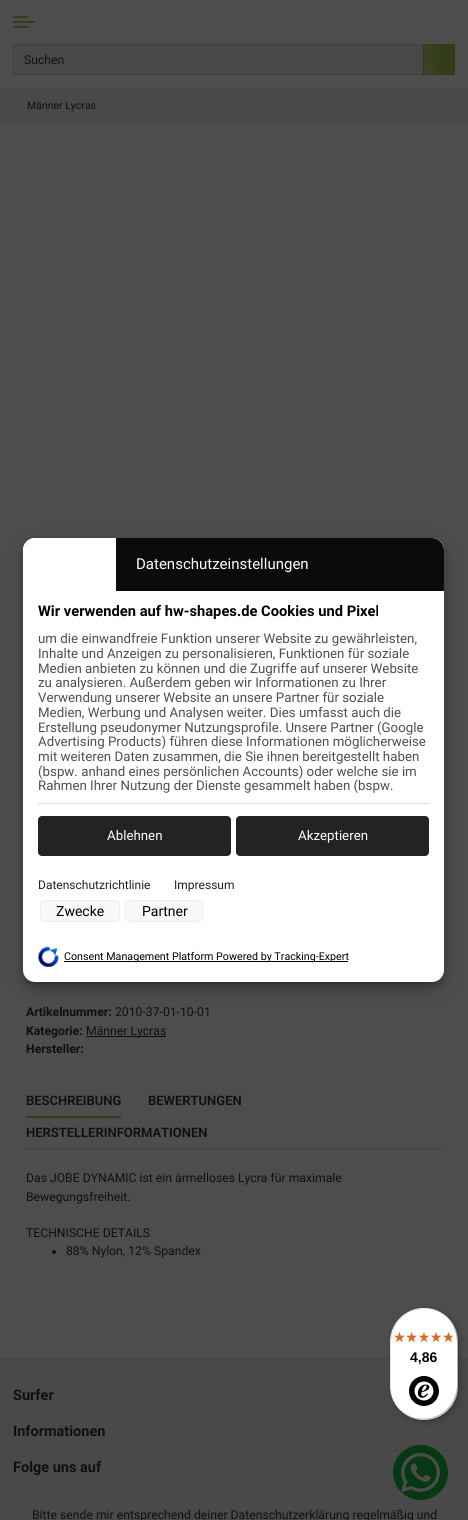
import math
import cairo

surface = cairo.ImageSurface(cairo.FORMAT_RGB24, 468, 1520)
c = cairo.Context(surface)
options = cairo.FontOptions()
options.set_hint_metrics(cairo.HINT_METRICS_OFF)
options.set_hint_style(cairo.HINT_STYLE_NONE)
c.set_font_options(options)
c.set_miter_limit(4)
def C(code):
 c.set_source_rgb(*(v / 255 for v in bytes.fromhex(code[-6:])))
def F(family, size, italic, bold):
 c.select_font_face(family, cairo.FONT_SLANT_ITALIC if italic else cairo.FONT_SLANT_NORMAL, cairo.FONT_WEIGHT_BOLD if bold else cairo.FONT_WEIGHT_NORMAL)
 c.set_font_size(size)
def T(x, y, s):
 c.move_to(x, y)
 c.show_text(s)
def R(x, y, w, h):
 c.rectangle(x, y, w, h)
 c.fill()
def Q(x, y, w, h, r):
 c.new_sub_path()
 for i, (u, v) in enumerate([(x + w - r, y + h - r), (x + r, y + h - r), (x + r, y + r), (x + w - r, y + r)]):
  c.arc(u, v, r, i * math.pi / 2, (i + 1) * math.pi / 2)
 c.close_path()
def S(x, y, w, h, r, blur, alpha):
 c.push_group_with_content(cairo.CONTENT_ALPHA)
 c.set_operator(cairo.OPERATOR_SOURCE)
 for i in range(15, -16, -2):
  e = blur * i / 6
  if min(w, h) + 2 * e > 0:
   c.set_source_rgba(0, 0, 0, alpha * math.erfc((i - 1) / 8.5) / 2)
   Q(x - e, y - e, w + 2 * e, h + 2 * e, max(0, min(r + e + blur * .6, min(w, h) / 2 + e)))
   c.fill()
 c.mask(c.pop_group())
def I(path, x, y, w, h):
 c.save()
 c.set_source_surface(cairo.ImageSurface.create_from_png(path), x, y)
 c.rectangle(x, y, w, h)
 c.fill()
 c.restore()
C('4d4d4d')
c.paint()
C('333c19')
Q(13,21,22,2,1)
c.fill()
Q(13,16,16,2,1)
c.fill()
Q(13,26,16,2,1)
c.fill()
C('484849')
c.new_path()
c.move_to(14.5,44.5)
c.line_to(423.5,44.5)
c.line_to(423.5,74.5)
c.line_to(14.5,74.5)
c.curve_to(14,74.5,13.5,74,13.5,73.5)
c.line_to(13.5,45.5)
c.curve_to(13.5,45,14,44.5,14.5,44.5)
c.close_path()
c.fill_preserve()
C('3f4142')
c.set_line_width(1)
c.stroke()
F('Roboto',12.2,0,0)
C('0f0f0f')
T(24,64,'Suchen')
C('333c19')
R(423,44,32,31)
C('49494a')
R(0,88,468,35)
c.save()
c.rectangle(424,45,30,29)
c.clip()
c.set_fill_rule(cairo.FILL_RULE_EVEN_ODD)
c.new_path()
c.move_to(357,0)
c.line_to(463,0)
c.line_to(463,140)
c.line_to(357,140)
c.close_path()
c.move_to(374,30.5)
c.line_to(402.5,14)
c.line_to(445.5,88.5)
c.line_to(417,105)
c.close_path()
c.clip()
C('4d4d4d')
S(394,17,32,86,0,12,.5)
c.restore()
c.save()
c.rectangle(424,45,30,29)
c.clip()
c.set_source_rgba(0.302,0.302,0.302,0.3)
c.new_path()
c.move_to(374,30)
c.line_to(402,14)
c.line_to(445,89)
c.line_to(417,105)
c.close_path()
c.fill()
c.restore()
F('Roboto',10.5,0,0)
C('0f0f0f')
T(27,109,'Männer Lycras')
C('454545')
R(26,983,416,1)
F('Roboto',12.2,0,1)
C('0f0f0f')
T(26,1016,'Artikelnummer:')
F('Roboto',12.2,0,0)
T(115,1016,'2010-37-01-10-01')
F('Roboto',12.2,0,1)
T(26,1035,'Kategorie:')
R(86,1036,80,1)
F('Roboto',12.2,0,0)
T(86,1035,'Männer Lycras')
F('Roboto',12.2,0,1)
T(26,1053,'Hersteller:')
C('454545')
R(26,1148,416,2)
F('Roboto SemiBold',13,0,0)
C('0f0f0f')
T(26,1105,'BESCHREIBUNG')
C('333c19')
R(26,1116,95,2)
C('0f0f0f')
T(148,1105,'BEWERTUNGEN')
T(26,1137,'HERSTELLERINFORMATIONEN')
F('Roboto',12.2,0,0)
T(26,1182,'Das JOBE DYNAMIC ist ein ärmelloses Lycra für maximale')
T(26,1201,'Bewegungsfreiheit.')
T(26,1237,'TECHNISCHE DETAILS')
c.new_path()
c.arc(54,1252,2,0,2 * math.pi)
c.fill()
T(66,1255,'88% Nylon, 12% Spandex')
C('000000')
S(23,545,421,444,12,10,.17)
S(23,543,421,444,12,4,.2)
C('ffffff')
Q(23,538,421,444,12)
c.fill()
c.new_path()
c.move_to(35,538)
c.line_to(432,538)
c.curve_to(438.5,538,444,543.5,444,550)
c.line_to(444,596)
c.line_to(23,596)
c.line_to(23,550)
c.curve_to(23,543.5,28.5,538,35,538)
c.close_path()
c.fill()
C('0b0b0b')
c.new_path()
c.move_to(116,538)
c.line_to(432,538)
c.curve_to(438.5,538,444,543.5,444,550)
c.line_to(444,591)
c.line_to(116,591)
c.close_path()
c.fill()
F('Roboto',15,0,0)
C('ffffff')
T(136,569,'Datenschutzeinstellungen')
F('Roboto',14.7,0,1)
C('000000')
T(38,616,'Wir verwenden auf hw-shapes.de Cookies und Pixel')
F('Roboto',13.3,0,0)
C('4f4f4f')
T(38,643,'um die einwandfreie Funktion unserer Website zu gewährleisten,')
T(38,658,'Inhalte und Anzeigen zu personalisieren, Funktionen für soziale')
T(38,673,'Medien anbieten zu können und die Zugriffe auf unserer Website')
T(38,687,'zu analysieren. Außerdem geben wir Informationen zu Ihrer')
T(38,702,'Verwendung unserer Website an unsere Partner für soziale')
T(38,717,'Medien, Werbung und Analysen weiter. Dies umfasst auch die')
T(38,732,'Erstellung pseudonymer Nutzungsprofile. Unsere Partner (Google')
T(38,746,'Advertising Products) führen diese Informationen möglicherweise')
T(38,761,'mit weiteren Daten zusammen, die Sie ihnen bereitgestellt haben')
T(38,776,'(bspw. anhand eines persönlichen Accounts) oder welche sie im')
T(38,790,'Rahmen Ihrer Nutzung der Dienste gesammelt haben (bspw.')
C('dddddd')
R(38,803,391,1)
C('232323')
Q(38,816,193,40,4)
c.fill()
C('ffffff')
T(107,840,'Ablehnen')
C('232323')
Q(236,816,193,40,4)
c.fill()
C('ffffff')
T(298,840,'Akzeptieren')
F('Roboto',12,0,0)
C('212121')
T(38,889,'Datenschutzrichtlinie')
T(174,889,'Impressum')
C('f8f8f8')
Q(40.5,900.5,79,21,3.5)
c.fill_preserve()
C('efefef')
c.stroke()
F('Roboto',14,0,0)
C('000000')
T(56,916,'Zwecke')
C('f8f8f8')
Q(125.5,900.5,77,21,3.5)
c.fill_preserve()
C('efefef')
c.stroke()
C('000000')
T(142,916,'Partner')
I('1.png',38,946,21,21)
R(64,961,284,1)
F('Roboto',10.7,0,0)
T(64,960,'Consent Management Platform Powered by Tracking-Expert')
C('49494a')
R(0,1359,468,161)
C('444547')
R(0,1358,468,1)
C('434444')
R(13,1414,442,1)
C('000000')
S(393,1311,68,112,34,4,.15)
S(391,1309,68,112,34,1,.15)
C('ffffff')
Q(390,1308,68,112,34)
c.fill()
c.set_source_rgba(0,0,0,0.1)
c.new_path()
c.move_to(425,1309)
c.curve_to(433,1309,441,1312,447,1317)
c.curve_to(430,1302,402,1308,393,1329)
c.curve_to(388,1339,390,1353,390,1364)
c.curve_to(390,1379,387,1396,399,1409)
c.curve_to(394,1403,391,1395,391,1387)
c.line_to(391,1343)
c.curve_to(391,1324,406,1309,425,1309)
c.close_path()
c.fill()
c.set_source_rgba(0,0,0,0.2)
c.new_path()
c.move_to(401,1411)
c.curve_to(418,1426,446,1420,455,1399)
c.curve_to(460,1389,458,1375,458,1364)
c.curve_to(458,1349,461,1332,449,1319)
c.curve_to(459,1332,457,1348,457,1363)
c.curve_to(457,1374,459,1388,454,1398)
c.curve_to(446,1419,418,1425,401,1411)
c.close_path()
c.fill()
c.set_source_rgba(0.196,0.196,0.196,0.2)
c.new_path()
c.move_to(397,1407)
c.curve_to(404,1415,413,1420,424,1420)
c.curve_to(443,1420,458,1405,458,1386)
c.line_to(458,1342)
c.curve_to(458,1331,453,1322,445,1315)
c.curve_to(452,1322,457,1331,457,1341)
c.line_to(457,1385)
c.curve_to(457,1404,442,1419,423,1419)
c.curve_to(413,1419,404,1414,397,1407)
c.close_path()
c.fill()
c.set_source_rgba(1,1,1,0.3)
c.set_fill_rule(cairo.FILL_RULE_EVEN_ODD)
c.new_path()
c.move_to(424,1308)
c.curve_to(443,1308,458,1323,458,1342)
c.curve_to(458,1323,442,1308,424,1308)
c.close_path()
c.move_to(458,1386)
c.curve_to(458,1404,442,1420,424,1420)
c.curve_to(443,1420,458,1405,458,1386)
c.close_path()
c.fill()
I('2.png',394,1332,11,10)
I('3.png',407,1332,10,10)
I('4.png',419,1332,10,10)
I('5.png',431,1332,11,10)
I('5.png',443,1332,11,10)
I('6.png',394,1332,11,10)
I('7.png',406,1332,11,10)
I('8.png',419,1332,10,10)
I('9.png',431,1332,10,10)
I('10.png',443,1332,9,10)
F('Liberation Sans',14,0,1)
C('000000')
T(410,1362,'4,86')
I('11.png',409,1376,30,30)
F('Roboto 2',14.5,0,1)
C('0f0f0f')
T(13,1400,'Surfer')
T(13,1436,'Informationen')
C('434444')
R(13,1450,442,1)
C('0f0f0f')
T(13,1472,'Folge uns auf')
C('434444')
R(13,1486,442,1)
F('Roboto',12.2,0,0)
C('0f0f0f')
T(32,1519,'Bitte sende mir entsprechend deiner Datenschutzerklärung regelmäßig und')
C('083714')
c.new_path()
c.arc(420.5,1472.5,27.5,0,2 * math.pi)
c.fill()
I('12.png',401,1453,39,39)
surface.write_to_png('o.png')
